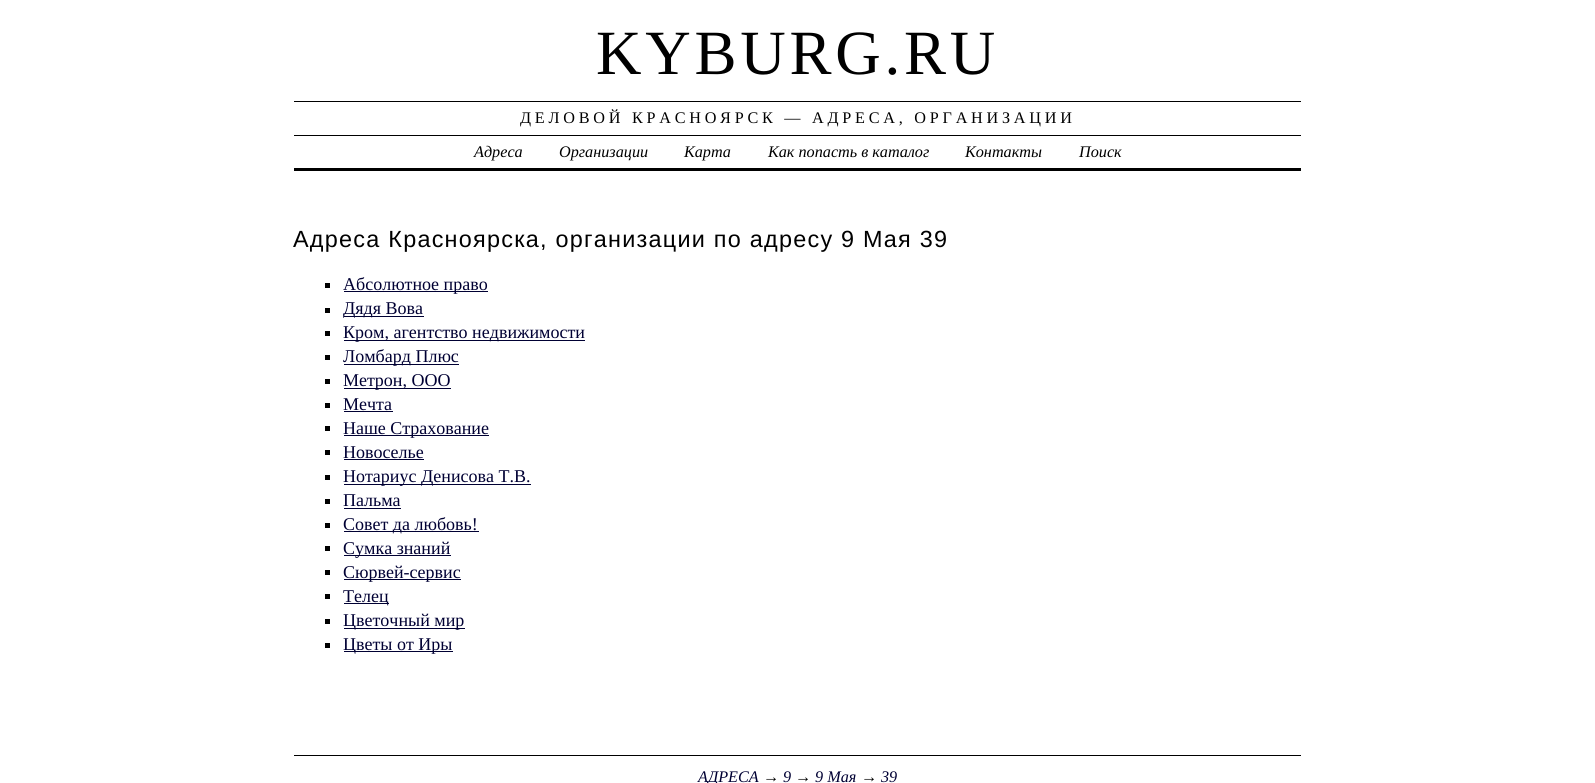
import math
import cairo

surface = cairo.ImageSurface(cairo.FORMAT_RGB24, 1595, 783)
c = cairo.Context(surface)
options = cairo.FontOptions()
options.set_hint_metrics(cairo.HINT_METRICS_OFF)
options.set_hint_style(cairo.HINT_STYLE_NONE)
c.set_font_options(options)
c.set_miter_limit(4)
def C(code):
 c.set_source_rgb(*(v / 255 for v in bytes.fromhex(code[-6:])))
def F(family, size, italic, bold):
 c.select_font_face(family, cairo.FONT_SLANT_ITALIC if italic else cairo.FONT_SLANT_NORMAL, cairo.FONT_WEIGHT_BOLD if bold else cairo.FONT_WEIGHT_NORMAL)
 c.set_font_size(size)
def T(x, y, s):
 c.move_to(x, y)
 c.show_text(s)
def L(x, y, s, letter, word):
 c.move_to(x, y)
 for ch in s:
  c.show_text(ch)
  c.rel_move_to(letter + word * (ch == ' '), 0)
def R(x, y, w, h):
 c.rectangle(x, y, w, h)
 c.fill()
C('ffffff')
c.paint()
F('Liberation Serif',63,0,0)
C('000000')
L(596,74,'KYBURG.RU',3.75,0)
R(294,101,1007,1)
F('Liberation Serif',16.2,0,0)
L(520,123,'ДЕЛОВОЙ КРАСНОЯРСК — АДРЕСА, ОРГАНИЗАЦИИ',3.75,0)
R(294,135,1007,1)
R(294,168,1007,3)
F('Liberation Serif',16.2,1,0)
T(474,157,'Адреса')
T(559,157,'Организации')
T(684,157,'Карта')
T(768,157,'Как попасть в каталог')
T(965,157,'Контакты')
T(1079,157,'Поиск')
F('Liberation Sans',23.4,0,0)
L(293,247,'Адреса Красноярска, организации по адресу 9 Мая 39',1.25,0)
R(325,283,5,5)
C('000033')
R(344,291,144,1)
F('Liberation Serif',18,0,0)
T(343,290,'Абсолютное право')
C('000000')
R(325,308,5,5)
C('000033')
R(344,316,80,1)
T(343,314,'Дядя Вова')
C('000000')
R(325,331,5,5)
C('000033')
R(344,340,241,1)
T(343,338,'Кром, агентство недвижимости')
C('000000')
R(325,355,5,5)
C('000033')
R(344,364,115,1)
T(343,362,'Ломбард Плюс')
C('000000')
R(325,379,5,5)
C('000033')
R(344,388,107,1)
T(343,386,'Метрон, ООО')
C('000000')
R(325,403,5,5)
C('000033')
T(343,410,'Мечта')
R(344,411,49,1)
C('000000')
R(325,426,5,5)
C('000033')
R(344,435,145,1)
T(343,434,'Наше Страхование')
C('000000')
R(325,450,5,5)
C('000033')
T(343,458,'Новоселье')
R(344,459,80,1)
C('000000')
R(325,475,5,5)
C('000033')
R(344,484,187,1)
T(343,482,'Нотариус Денисова Т.В.')
C('000000')
R(325,499,5,5)
C('000033')
T(343,506,'Пальма')
R(344,508,57,1)
C('000000')
R(325,523,5,5)
C('000033')
R(344,531,135,1)
T(343,530,'Совет да любовь!')
C('000000')
R(325,546,5,5)
C('000033')
R(344,555,107,1)
T(343,554,'Сумка знаний')
C('000000')
R(325,570,5,5)
C('000033')
R(344,579,117,1)
T(343,578,'Сюрвей-сервис')
C('000000')
R(325,594,5,5)
C('000033')
R(344,603,45,1)
T(343,602,'Телец')
C('000000')
R(325,619,5,5)
C('000033')
R(344,628,121,1)
T(343,626,'Цветочный мир')
C('000000')
R(325,643,5,5)
C('000033')
R(344,651,109,1)
T(343,650,'Цветы от Иры')
C('000000')
R(294,755,1007,1)
F('Liberation Serif',16.2,1,0)
C('000033')
T(698,782,'АДРЕСА')
C('000000')
T(763,782,'→')
C('000033')
T(783,782,'9')
C('000000')
T(795,782,'→')
C('000033')
T(815,782,'9 Мая')
C('000000')
T(861,782,'→')
C('000033')
T(881,782,'39')
surface.write_to_png('o.png')
